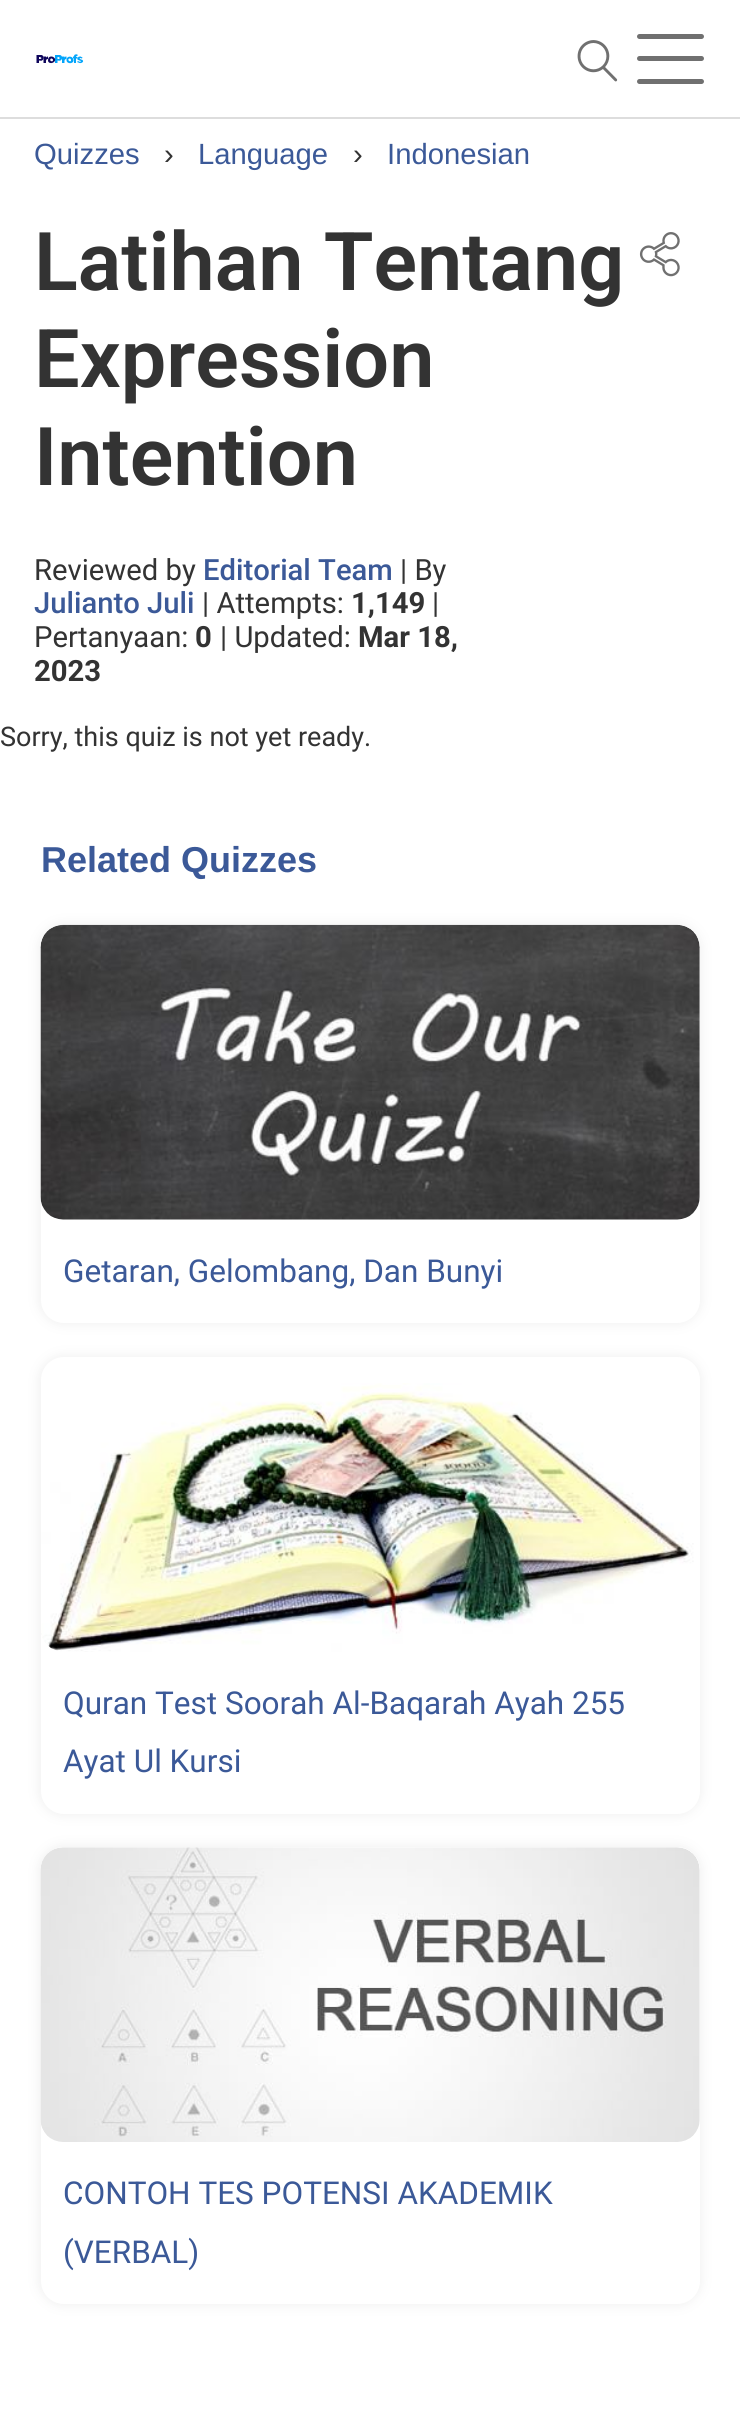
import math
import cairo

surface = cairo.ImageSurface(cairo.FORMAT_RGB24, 740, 2419)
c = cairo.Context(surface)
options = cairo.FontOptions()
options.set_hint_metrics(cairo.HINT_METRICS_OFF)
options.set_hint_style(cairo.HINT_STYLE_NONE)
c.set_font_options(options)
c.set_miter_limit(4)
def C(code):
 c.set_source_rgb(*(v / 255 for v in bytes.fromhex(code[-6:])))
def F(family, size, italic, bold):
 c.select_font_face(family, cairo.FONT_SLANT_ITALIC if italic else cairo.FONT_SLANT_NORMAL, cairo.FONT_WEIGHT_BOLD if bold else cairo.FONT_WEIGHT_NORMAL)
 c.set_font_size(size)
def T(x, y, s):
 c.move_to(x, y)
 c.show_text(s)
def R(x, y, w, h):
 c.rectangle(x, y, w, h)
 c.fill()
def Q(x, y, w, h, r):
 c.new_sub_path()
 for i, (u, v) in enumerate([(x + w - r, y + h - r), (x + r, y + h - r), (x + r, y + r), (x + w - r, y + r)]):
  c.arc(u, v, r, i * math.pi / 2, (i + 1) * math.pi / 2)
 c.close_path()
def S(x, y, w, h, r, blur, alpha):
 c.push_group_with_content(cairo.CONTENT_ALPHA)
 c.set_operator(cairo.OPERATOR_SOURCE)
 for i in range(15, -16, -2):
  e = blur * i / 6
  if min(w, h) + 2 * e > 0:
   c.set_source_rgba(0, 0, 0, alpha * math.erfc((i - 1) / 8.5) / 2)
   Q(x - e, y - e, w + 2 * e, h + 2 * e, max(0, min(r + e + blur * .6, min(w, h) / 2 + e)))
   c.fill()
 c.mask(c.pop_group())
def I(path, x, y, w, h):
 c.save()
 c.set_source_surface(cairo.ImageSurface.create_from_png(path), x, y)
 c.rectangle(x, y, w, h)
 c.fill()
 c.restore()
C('ffffff')
c.paint()
C('dddddd')
R(0,117,740,2)
C('0e055b')
c.set_fill_rule(cairo.FILL_RULE_EVEN_ODD)
c.new_path()
c.move_to(41.5,55)
c.curve_to(44,55.5,44.5,59,42,60.5)
c.curve_to(41,61,40,60.5,39,60.5)
c.line_to(39,63)
c.line_to(36.5,63)
c.line_to(36.5,55)
c.close_path()
c.move_to(40,59)
c.line_to(39,59)
c.line_to(39,57)
c.curve_to(42,57,42,59,40,59)
c.close_path()
c.fill()
c.set_fill_rule(cairo.FILL_RULE_WINDING)
c.new_path()
c.move_to(46,56.5)
c.line_to(43.5,56.5)
c.line_to(43.5,63)
c.line_to(46,63)
c.curve_to(46,61.5,45.5,59,48,59)
c.line_to(48,56.5)
c.curve_to(47,56.5,46,57,46,58)
c.close_path()
c.fill()
C('03a5fb')
c.set_fill_rule(cairo.FILL_RULE_EVEN_ODD)
c.new_path()
c.move_to(60,55)
c.curve_to(62.5,55.5,63,59,60.5,60.5)
c.curve_to(59.5,61,58.5,60.5,57.5,60.5)
c.line_to(57.5,63)
c.line_to(55,63)
c.line_to(55,55)
c.close_path()
c.move_to(58.5,59)
c.line_to(57.5,59)
c.line_to(57.5,57)
c.curve_to(60.5,57,60,59,58.5,59)
c.close_path()
c.fill()
C('0e055b')
c.new_path()
c.move_to(48,61)
c.curve_to(48,58.5,48.5,56.5,51.5,56.5)
c.curve_to(52.5,56.5,53.5,57,54.5,58)
c.curve_to(57.5,62,49.5,65.5,48,61)
c.close_path()
c.move_to(53,60)
c.curve_to(53,62.5,49,61,50.5,59)
c.curve_to(51,58,53,58.5,53,60)
c.close_path()
c.fill()
C('03a5fb')
c.set_fill_rule(cairo.FILL_RULE_WINDING)
c.new_path()
c.move_to(64.5,56.5)
c.line_to(62,56.5)
c.line_to(62,63)
c.line_to(64.5,63)
c.curve_to(64.5,61.5,64,59,66.5,59)
c.line_to(66.5,56.5)
c.curve_to(65,56.5,64.5,57,64.5,58)
c.close_path()
c.fill()
c.set_fill_rule(cairo.FILL_RULE_EVEN_ODD)
c.new_path()
c.move_to(66.5,60)
c.curve_to(66.5,64.5,74,64,73.5,60)
c.curve_to(73,55.5,66.5,55.5,66.5,60)
c.close_path()
c.move_to(71,60)
c.curve_to(71.5,62.5,67.5,61,68.5,59)
c.curve_to(69.5,58,71,58.5,71,60)
c.close_path()
c.fill()
c.set_fill_rule(cairo.FILL_RULE_WINDING)
c.new_path()
c.move_to(73,58.5)
c.line_to(74,58.5)
c.line_to(74,63)
c.line_to(76,63)
c.line_to(76,58.5)
c.line_to(77.5,58.5)
c.line_to(77.5,57)
c.line_to(76,57)
c.curve_to(76,56,77,56,77.5,56)
c.line_to(77.5,54.5)
c.curve_to(75.5,54,74,54.5,74,56.5)
c.line_to(73,56.5)
c.close_path()
c.fill()
c.new_path()
c.move_to(77,62)
c.line_to(79.5,63)
c.curve_to(81,63.5,84.5,62,82.5,60)
c.line_to(80,59)
c.curve_to(79.5,58.5,79.5,58,80,58)
c.line_to(82,58.5)
c.line_to(82.5,57.5)
c.line_to(80.5,56.5)
c.curve_to(79.5,56.5,78.5,56.5,78,57.5)
c.curve_to(75.5,60,80,60.5,81,61)
c.curve_to(81,61.5,80,62.5,78,61)
c.close_path()
c.fill()
I('1.png',577,40,41,42)
C('707070')
Q(637,34,67,5,2.5)
c.fill()
Q(637,56,67,5,2.5)
c.fill()
Q(637,79,67,5,2.5)
c.fill()
F('Liberation Sans',29.25,0,0)
C('3b5998')
T(34,164,'Quizzes')
C('333333')
T(164,164,'›')
C('3b5998')
T(198,164,'Language')
C('333333')
T(353,164,'›')
C('3b5998')
T(387,164,'Indonesian')
F('Roboto SemiBold',81,0,0)
C('333333')
T(34,290,'Latihan Tentang')
T(34,387,'Expression')
T(34,485,'Intention')
I('2.png',639,232,41,45)
F('Roboto',29.25,0,0)
T(34,580,'Reviewed by')
F('Roboto Medium',29.25,0,0)
C('3b5998')
T(203,580,'Editorial Team')
F('Roboto',29.25,0,0)
C('333333')
T(400,580,'| By')
F('Roboto Medium',29.25,0,0)
C('3b5998')
T(34,613,'Julianto Juli')
F('Roboto',29.25,0,0)
C('333333')
T(202,613,'| Attempts:')
F('Roboto',29.25,0,1)
T(351,613,'1,149')
F('Roboto',29.25,0,0)
T(432,613,'|')
T(34,647,'Pertanyaan:')
F('Roboto',29.25,0,1)
T(195,647,'0')
F('Roboto',29.25,0,0)
T(220,647,'| Updated:')
F('Roboto',29.25,0,1)
T(358,647,'Mar 18,')
T(34,681,'2023')
F('Roboto',27,0,0)
T(0,746,'Sorry, this quiz is not yet ready.')
F('Liberation Sans',36,0,1)
C('3b5998')
T(41,872,'Related Quizzes')
C('f2f2f2')
S(38,923,664,402,25,5.5,1)
C('ffffff')
Q(41,925,659,398,23)
c.fill()
I('3.png',40,924,660,296)
F('Roboto',31.5,0,0)
C('3b5998')
T(63,1282,'Getaran, Gelombang, Dan Bunyi')
C('f2f2f2')
S(38,1355,664,461,25,5.5,1)
C('ffffff')
Q(41,1357,659,457,23)
c.fill()
I('4.png',41,1383,653,269)
C('3b5998')
T(63,1714,'Quran Test Soorah Al-Baqarah Ayah 255')
T(63,1772,'Ayat Ul Kursi')
C('f2f2f2')
S(38,1845,664,461,25,5.5,1)
C('ffffff')
Q(41,1847,659,457,23)
c.fill()
I('5.png',40,1847,660,295)
C('3b5998')
T(63,2204,'CONTOH TES POTENSI AKADEMIK')
T(63,2263,'(VERBAL)')
surface.write_to_png('o.png')
